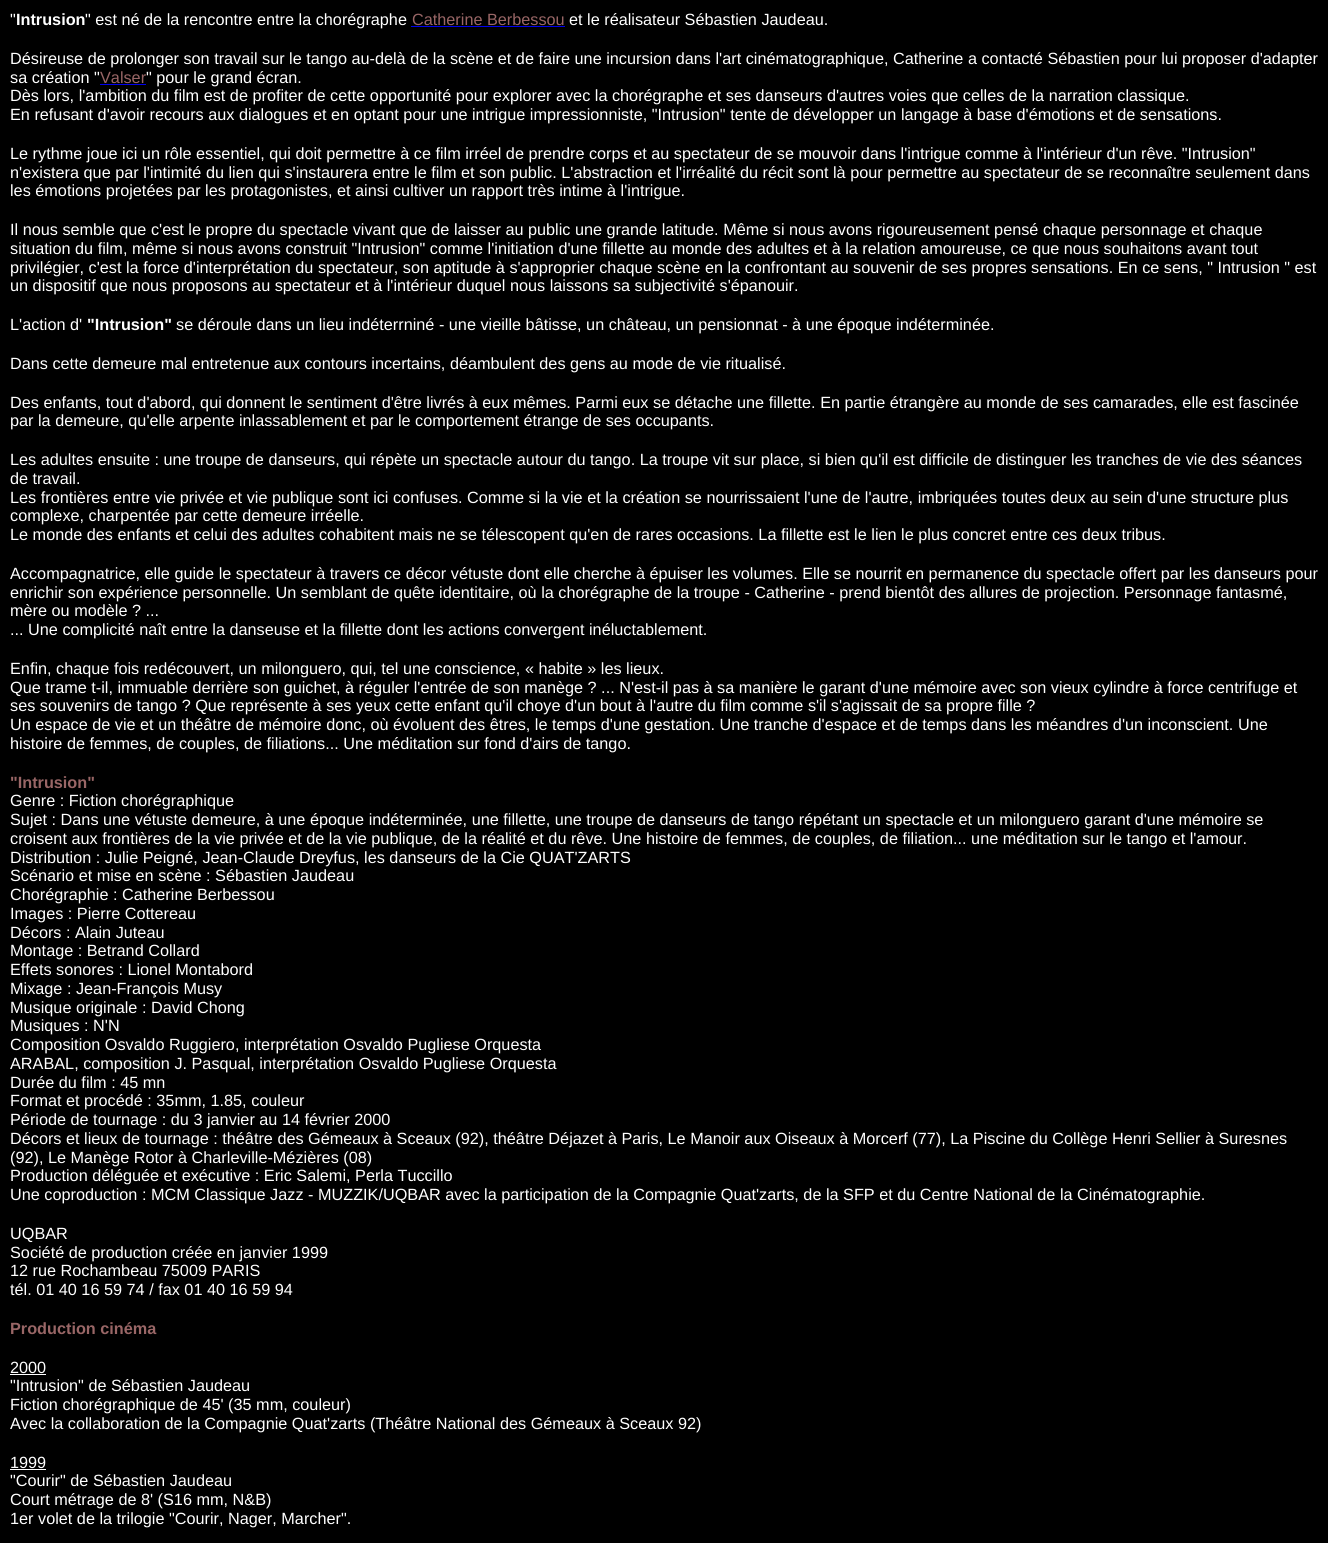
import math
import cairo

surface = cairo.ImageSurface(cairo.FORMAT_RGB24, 1328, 1543)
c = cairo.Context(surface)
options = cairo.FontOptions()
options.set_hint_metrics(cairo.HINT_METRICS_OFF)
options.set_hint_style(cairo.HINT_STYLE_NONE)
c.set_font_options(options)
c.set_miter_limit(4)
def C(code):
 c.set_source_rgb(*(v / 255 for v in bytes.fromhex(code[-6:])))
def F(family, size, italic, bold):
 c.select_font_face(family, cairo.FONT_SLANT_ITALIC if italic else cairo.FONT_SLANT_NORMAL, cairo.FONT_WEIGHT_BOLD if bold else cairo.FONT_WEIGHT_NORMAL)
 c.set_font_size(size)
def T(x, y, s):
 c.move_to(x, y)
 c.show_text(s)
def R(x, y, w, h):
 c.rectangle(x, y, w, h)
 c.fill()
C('000000')
c.paint()
F('Liberation Sans',16.25,0,0)
C('ffffff')
T(10,25,'"')
F('Liberation Sans',16.25,0,1)
T(16,25,'Intrusion')
F('Liberation Sans',16.25,0,0)
T(85,25,'" est né de la rencontre entre la chorégraphe')
C('996666')
T(412,25,'Catherine Berbessou')
C('0000ee')
R(411,26,154,1)
C('ffffff')
T(569,25,'et le réalisateur Sébastien Jaudeau.')
T(10,64,'Désireuse de prolonger son travail sur le tango au-delà de la scène et de faire une incursion dans l\'art cinématographique, Catherine a contacté Sébastien pour lui proposer d\'adapter')
T(10,83,'sa création "')
C('996666')
T(100,83,'Valser')
C('ffffff')
T(146,83,'" pour le grand écran.')
C('0000ee')
R(100,84,46,1)
C('ffffff')
T(10,101,'Dès lors, l\'ambition du film est de profiter de cette opportunité pour explorer avec la chorégraphe et ses danseurs d\'autres voies que celles de la narration classique.')
T(10,120,'En refusant d\'avoir recours aux dialogues et en optant pour une intrigue impressionniste, "Intrusion" tente de développer un langage à base d\'émotions et de sensations.')
T(10,159,'Le rythme joue ici un rôle essentiel, qui doit permettre à ce film irréel de prendre corps et au spectateur de se mouvoir dans l\'intrigue comme à l\'intérieur d\'un rêve. "Intrusion"')
T(10,178,'n\'existera que par l\'intimité du lien qui s\'instaurera entre le film et son public. L\'abstraction et l\'irréalité du récit sont là pour permettre au spectateur de se reconnaître seulement dans')
T(10,196,'les émotions projetées par les protagonistes, et ainsi cultiver un rapport très intime à l\'intrigue.')
T(10,235,'Il nous semble que c\'est le propre du spectacle vivant que de laisser au public une grande latitude. Même si nous avons rigoureusement pensé chaque personnage et chaque')
T(10,254,'situation du film, même si nous avons construit "Intrusion" comme l\'initiation d\'une fillette au monde des adultes et à la relation amoureuse, ce que nous souhaitons avant tout')
T(10,273,'privilégier, c\'est la force d\'interprétation du spectateur, son aptitude à s\'approprier chaque scène en la confrontant au souvenir de ses propres sensations. En ce sens, " Intrusion " est')
T(10,291,'un dispositif que nous proposons au spectateur et à l\'intérieur duquel nous laissons sa subjectivité s\'épanouir.')
T(10,330,'L\'action d\'')
F('Liberation Sans',16.25,0,1)
T(87,330,'"Intrusion"')
F('Liberation Sans',16.25,0,0)
T(176,330,'se déroule dans un lieu indéterrniné - une vieille bâtisse, un château, un pensionnat - à une époque indéterminée.')
T(10,369,'Dans cette demeure mal entretenue aux contours incertains, déambulent des gens au mode de vie ritualisé.')
T(10,408,'Des enfants, tout d\'abord, qui donnent le sentiment d\'être livrés à eux mêmes. Parmi eux se détache une fillette. En partie étrangère au monde de ses camarades, elle est fascinée')
T(10,426,'par la demeure, qu\'elle arpente inlassablement et par le comportement étrange de ses occupants.')
T(10,465,'Les adultes ensuite : une troupe de danseurs, qui répète un spectacle autour du tango. La troupe vit sur place, si bien qu\'il est difficile de distinguer les tranches de vie des séances')
T(10,484,'de travail.')
T(10,503,'Les frontières entre vie privée et vie publique sont ici confuses. Comme si la vie et la création se nourrissaient l\'une de l\'autre, imbriquées toutes deux au sein d\'une structure plus')
T(10,521,'complexe, charpentée par cette demeure irréelle.')
T(10,540,'Le monde des enfants et celui des adultes cohabitent mais ne se télescopent qu\'en de rares occasions. La fillette est le lien le plus concret entre ces deux tribus.')
T(10,579,'Accompagnatrice, elle guide le spectateur à travers ce décor vétuste dont elle cherche à épuiser les volumes. Elle se nourrit en permanence du spectacle offert par les danseurs pour')
T(10,598,'enrichir son expérience personnelle. Un semblant de quête identitaire, où la chorégraphe de la troupe - Catherine - prend bientôt des allures de projection. Personnage fantasmé,')
T(10,616,'mère ou modèle ? ...')
T(10,635,'... Une complicité naît entre la danseuse et la fillette dont les actions convergent inéluctablement.')
T(10,674,'Enfin, chaque fois redécouvert, un milonguero, qui, tel une conscience, « habite » les lieux.')
T(10,693,'Que trame t-il, immuable derrière son guichet, à réguler l\'entrée de son manège ? ... N\'est-il pas à sa manière le garant d\'une mémoire avec son vieux cylindre à force centrifuge et')
T(10,711,'ses souvenirs de tango ? Que représente à ses yeux cette enfant qu\'il choye d\'un bout à l\'autre du film comme s\'il s\'agissait de sa propre fille ?')
T(10,730,'Un espace de vie et un théâtre de mémoire donc, où évoluent des êtres, le temps d\'une gestation. Une tranche d\'espace et de temps dans les méandres d\'un inconscient. Une')
T(10,749,'histoire de femmes, de couples, de filiations... Une méditation sur fond d\'airs de tango.')
F('Liberation Sans',16.25,0,1)
C('996666')
T(10,788,'"Intrusion"')
F('Liberation Sans',16.25,0,0)
C('ffffff')
T(10,806,'Genre : Fiction chorégraphique')
T(10,825,'Sujet : Dans une vétuste demeure, à une époque indéterminée, une fillette, une troupe de danseurs de tango répétant un spectacle et un milonguero garant d\'une mémoire se')
T(10,844,'croisent aux frontières de la vie privée et de la vie publique, de la réalité et du rêve. Une histoire de femmes, de couples, de filiation... une méditation sur le tango et l\'amour.')
T(10,863,'Distribution : Julie Peigné, Jean-Claude Dreyfus, les danseurs de la Cie QUAT\'ZARTS')
T(10,881,'Scénario et mise en scène : Sébastien Jaudeau')
T(10,900,'Chorégraphie : Catherine Berbessou')
T(10,919,'Images : Pierre Cottereau')
T(10,938,'Décors : Alain Juteau')
T(10,956,'Montage : Betrand Collard')
T(10,975,'Effets sonores : Lionel Montabord')
T(10,994,'Mixage : Jean-François Musy')
T(10,1013,'Musique originale : David Chong')
T(10,1031,'Musiques : N\'N')
T(10,1050,'Composition Osvaldo Ruggiero, interprétation Osvaldo Pugliese Orquesta')
T(10,1069,'ARABAL, composition J. Pasqual, interprétation Osvaldo Pugliese Orquesta')
T(10,1088,'Durée du film : 45 mn')
T(10,1106,'Format et procédé : 35mm, 1.85, couleur')
T(10,1125,'Période de tournage : du 3 janvier au 14 février 2000')
T(10,1144,'Décors et lieux de tournage : théâtre des Gémeaux à Sceaux (92), théâtre Déjazet à Paris, Le Manoir aux Oiseaux à Morcerf (77), La Piscine du Collège Henri Sellier à Suresnes')
T(10,1163,'(92), Le Manège Rotor à Charleville-Mézières (08)')
T(10,1181,'Production déléguée et exécutive : Eric Salemi, Perla Tuccillo')
T(10,1200,'Une coproduction : MCM Classique Jazz - MUZZIK/UQBAR avec la participation de la Compagnie Quat\'zarts, de la SFP et du Centre National de la Cinématographie.')
T(10,1239,'UQBAR')
T(10,1258,'Société de production créée en janvier 1999')
T(10,1276,'12 rue Rochambeau 75009 PARIS')
T(10,1295,'tél. 01 40 16 59 74 / fax 01 40 16 59 94')
F('Liberation Sans',16.25,0,1)
C('996666')
T(10,1334,'Production cinéma')
F('Liberation Sans',16.25,0,0)
C('ffffff')
T(10,1373,'2000')
R(10,1374,36,1)
T(10,1391,'"Intrusion" de Sébastien Jaudeau')
T(10,1410,'Fiction chorégraphique de 45\' (35 mm, couleur)')
T(10,1429,'Avec la collaboration de la Compagnie Quat\'zarts (Théâtre National des Gémeaux à Sceaux 92)')
T(10,1468,'1999')
R(10,1469,36,1)
T(10,1486,'"Courir" de Sébastien Jaudeau')
T(10,1505,'Court métrage de 8\' (S16 mm, N&B)')
T(10,1524,'1er volet de la trilogie "Courir, Nager, Marcher".')
surface.write_to_png('o.png')
